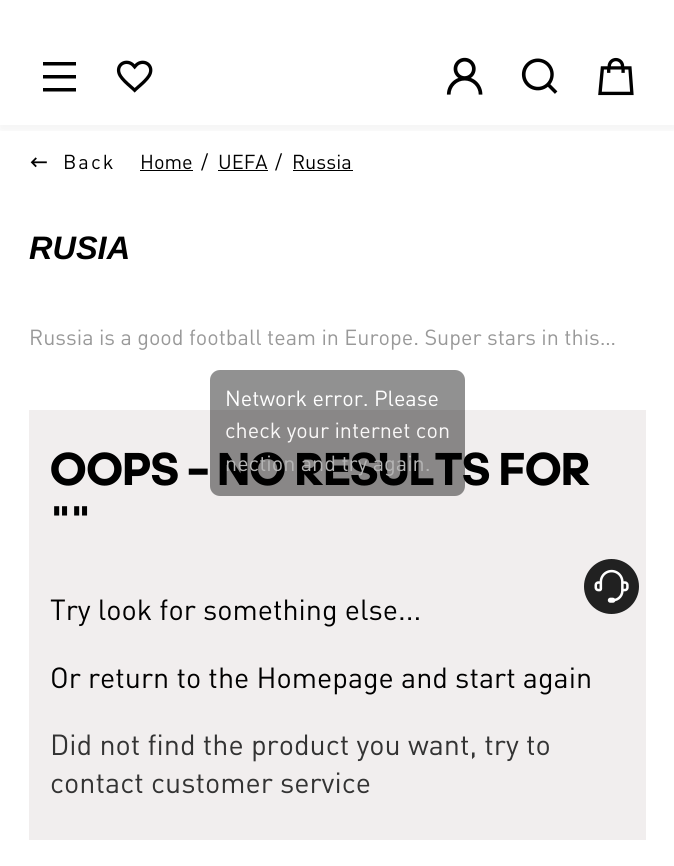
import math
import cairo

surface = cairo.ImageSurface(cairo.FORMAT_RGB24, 674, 866)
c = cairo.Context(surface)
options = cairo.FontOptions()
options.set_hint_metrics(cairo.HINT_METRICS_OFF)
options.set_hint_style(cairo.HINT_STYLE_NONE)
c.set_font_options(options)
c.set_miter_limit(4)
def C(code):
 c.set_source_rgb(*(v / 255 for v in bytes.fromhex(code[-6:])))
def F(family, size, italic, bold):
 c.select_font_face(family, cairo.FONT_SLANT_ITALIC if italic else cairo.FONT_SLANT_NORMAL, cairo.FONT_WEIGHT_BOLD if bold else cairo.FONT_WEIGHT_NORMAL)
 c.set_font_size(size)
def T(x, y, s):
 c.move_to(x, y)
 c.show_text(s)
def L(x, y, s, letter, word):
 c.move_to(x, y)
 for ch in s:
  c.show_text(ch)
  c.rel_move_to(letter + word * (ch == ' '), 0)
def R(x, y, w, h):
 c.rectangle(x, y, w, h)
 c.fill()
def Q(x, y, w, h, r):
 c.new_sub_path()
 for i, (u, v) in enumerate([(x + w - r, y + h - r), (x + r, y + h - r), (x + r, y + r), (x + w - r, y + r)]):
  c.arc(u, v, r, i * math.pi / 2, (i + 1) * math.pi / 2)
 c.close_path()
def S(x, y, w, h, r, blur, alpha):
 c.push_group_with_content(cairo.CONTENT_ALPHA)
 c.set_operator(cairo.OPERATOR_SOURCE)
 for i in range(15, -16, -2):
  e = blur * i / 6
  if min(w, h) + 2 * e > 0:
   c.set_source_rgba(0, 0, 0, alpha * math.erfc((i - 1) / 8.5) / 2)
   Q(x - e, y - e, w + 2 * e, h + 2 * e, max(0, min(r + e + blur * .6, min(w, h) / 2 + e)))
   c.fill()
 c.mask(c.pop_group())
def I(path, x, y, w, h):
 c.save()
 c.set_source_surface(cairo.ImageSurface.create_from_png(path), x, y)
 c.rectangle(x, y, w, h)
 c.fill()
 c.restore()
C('ffffff')
c.paint()
c.save()
c.rectangle(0,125,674,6)
c.clip()
C('000000')
S(0,5,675,125,0,5.5,.05)
c.restore()
C('000000')
c.new_path()
c.move_to(43,65.5)
c.line_to(76,65.5)
c.line_to(76,62)
c.line_to(43,62)
c.close_path()
c.move_to(43,78.5)
c.line_to(76,78.5)
c.line_to(76,75)
c.line_to(43,75)
c.close_path()
c.move_to(43,91.5)
c.line_to(76,91.5)
c.line_to(76,88)
c.line_to(43,88)
c.close_path()
c.fill()
I('1.png',116,60,37,33)
I('2.png',446,57,37,38)
I('3.png',521,58,37,36)
I('4.png',598,57,36,39)
I('5.png',30,157,17,11)
F('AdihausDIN',20,0,0)
L(63,169,'Back',2,0)
T(140,169,'Home')
R(140,170,53,1)
T(201,169,'/')
T(218,169,'UEFA')
R(218,170,50,1)
T(275,169,'/')
T(292,169,'Russia')
R(293,170,60,1)
F('Liberation Sans',32.5,1,1)
T(29,259,'RUSIA')
F('AdihausDIN',21.6,0,0)
C('999999')
T(29,345,'Russia is a good football team in Europe. Super stars in this…')
C('f1eeee')
R(29,410,617,430)
I('6.png',51,452,539,34)
F('AdihausDIN',47,0,1)
C('000000')
T(50,541,'""')
F('AdihausDIN',28.75,0,0)
T(50,620,'Try look for something else...')
T(50,688,'Or return to the Homepage and start again')
C('333333')
T(50,755,'Did not find the product you want, try to')
T(50,793,'contact customer service')
C('212121')
c.new_path()
c.arc(611.5,586.5,27.5,0,2 * math.pi)
c.fill()
I('7.png',594,569,35,34)
c.set_source_rgba(0,0,0,0.43)
Q(210,370,255,126,10)
c.fill()
F('AdihausDIN',21.6,0,0)
C('ffffff')
T(225,406,'Network error. Please')
C('faf8f8')
T(225,438,'check your internet con')
C('b5b5b5')
T(225,471,'nection and try again.')
surface.write_to_png('o.png')
